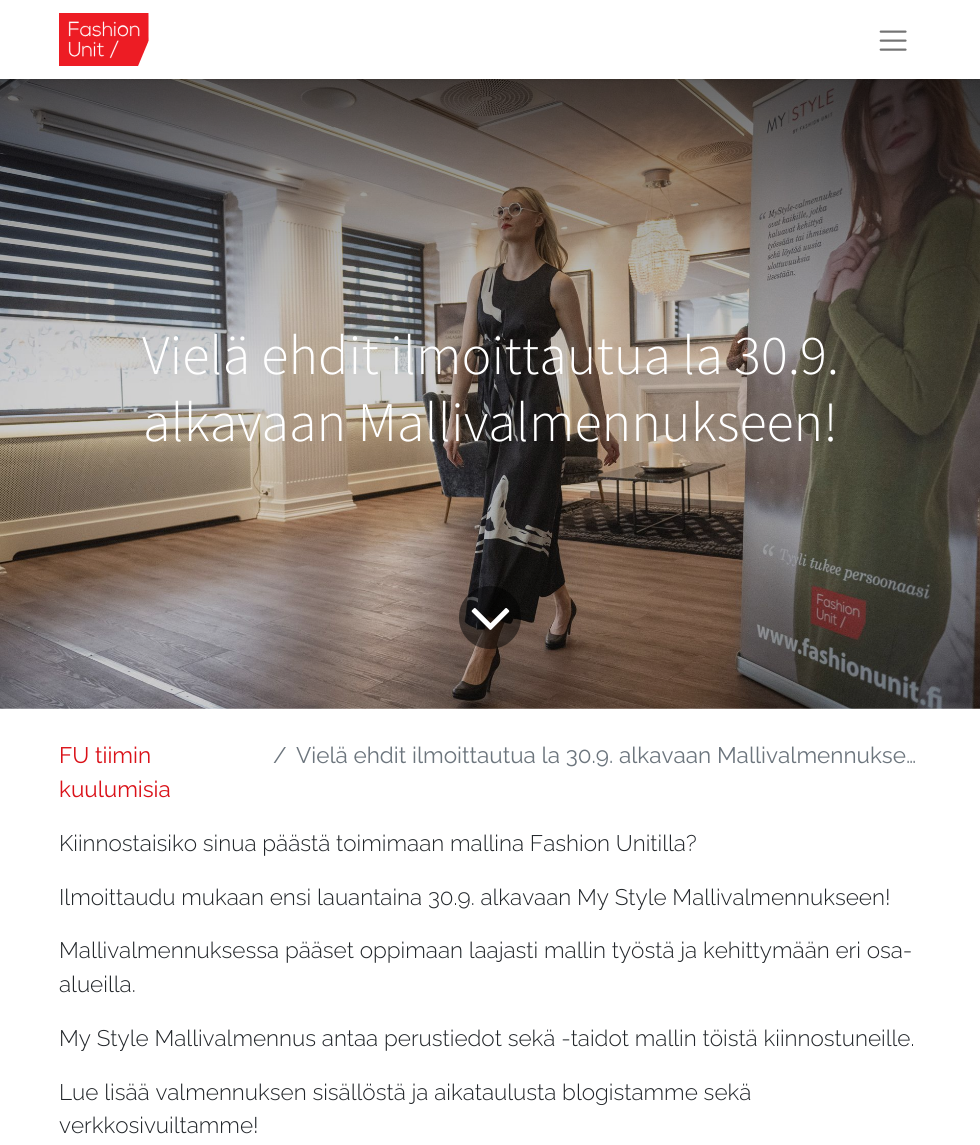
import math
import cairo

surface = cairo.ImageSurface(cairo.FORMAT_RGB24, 980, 1145)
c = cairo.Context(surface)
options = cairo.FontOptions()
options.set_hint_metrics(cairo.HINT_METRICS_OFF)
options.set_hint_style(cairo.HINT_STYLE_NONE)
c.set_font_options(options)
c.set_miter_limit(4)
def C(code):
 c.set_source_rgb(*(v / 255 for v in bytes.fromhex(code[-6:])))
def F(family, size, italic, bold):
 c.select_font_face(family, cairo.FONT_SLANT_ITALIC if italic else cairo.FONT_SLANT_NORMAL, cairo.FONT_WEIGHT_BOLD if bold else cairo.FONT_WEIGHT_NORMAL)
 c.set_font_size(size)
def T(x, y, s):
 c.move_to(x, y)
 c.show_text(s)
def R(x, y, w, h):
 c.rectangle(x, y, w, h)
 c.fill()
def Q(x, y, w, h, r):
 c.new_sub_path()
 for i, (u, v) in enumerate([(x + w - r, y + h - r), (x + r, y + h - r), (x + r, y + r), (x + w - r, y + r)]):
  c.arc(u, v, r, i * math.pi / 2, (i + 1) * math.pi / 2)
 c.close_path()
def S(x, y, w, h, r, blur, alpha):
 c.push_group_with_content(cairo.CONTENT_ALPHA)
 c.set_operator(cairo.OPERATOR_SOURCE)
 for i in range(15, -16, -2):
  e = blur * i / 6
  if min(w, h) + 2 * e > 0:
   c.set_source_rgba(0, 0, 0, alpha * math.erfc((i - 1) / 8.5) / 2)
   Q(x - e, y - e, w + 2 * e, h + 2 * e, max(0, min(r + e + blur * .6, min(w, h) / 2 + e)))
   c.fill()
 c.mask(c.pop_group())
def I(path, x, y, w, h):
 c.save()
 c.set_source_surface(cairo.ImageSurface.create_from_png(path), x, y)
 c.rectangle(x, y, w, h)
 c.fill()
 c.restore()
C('ffffff')
c.paint()
I('3.png',0,79,980,630)
C('000000')
S(0,1,980,79,0,2,.1)
C('ffffff')
R(0,0,980,79)
I('1.png',59,13,90,53)
I('2.png',879,30,28,21)
F('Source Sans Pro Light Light',56,0,0)
T(142,374,'Vielä ehdit ilmoittautua la 30.9.')
T(143,441,'alkavaan Mallivalmennukseen!')
c.set_source_rgba(0,0,0,0.5)
Q(459,586,62,63,31)
c.fill()
I('4.png',471,608,39,22)
F('Raleway',22.5,0,0)
C('da1118')
T(59,763,'FU tiimin')
T(59,797,'kuulumisia')
C('6c757d')
T(273,763,'/')
T(296,763,'Vielä ehdit ilmoittautua la 30.9. alkavaan Mallivalmennukse…')
F('Raleway Light',22.5,0,0)
C('212529')
T(59,851,'Kiinnostaisiko sinua päästä toimimaan mallina Fashion Unitilla?')
T(59,905,'Ilmoittaudu mukaan ensi lauantaina 30.9. alkavaan My Style Mallivalmennukseen!')
T(59,958,'Mallivalmennuksessa pääset oppimaan laajasti mallin työstä ja kehittymään eri osa-')
T(59,992,'alueilla.')
T(59,1046,'My Style Mallivalmennus antaa perustiedot sekä -taidot mallin töistä kiinnostuneille.')
T(59,1100,'Lue lisää valmennuksen sisällöstä ja aikataulusta blogistamme sekä')
T(59,1133,'verkkosivuiltamme!')
surface.write_to_png('o.png')
